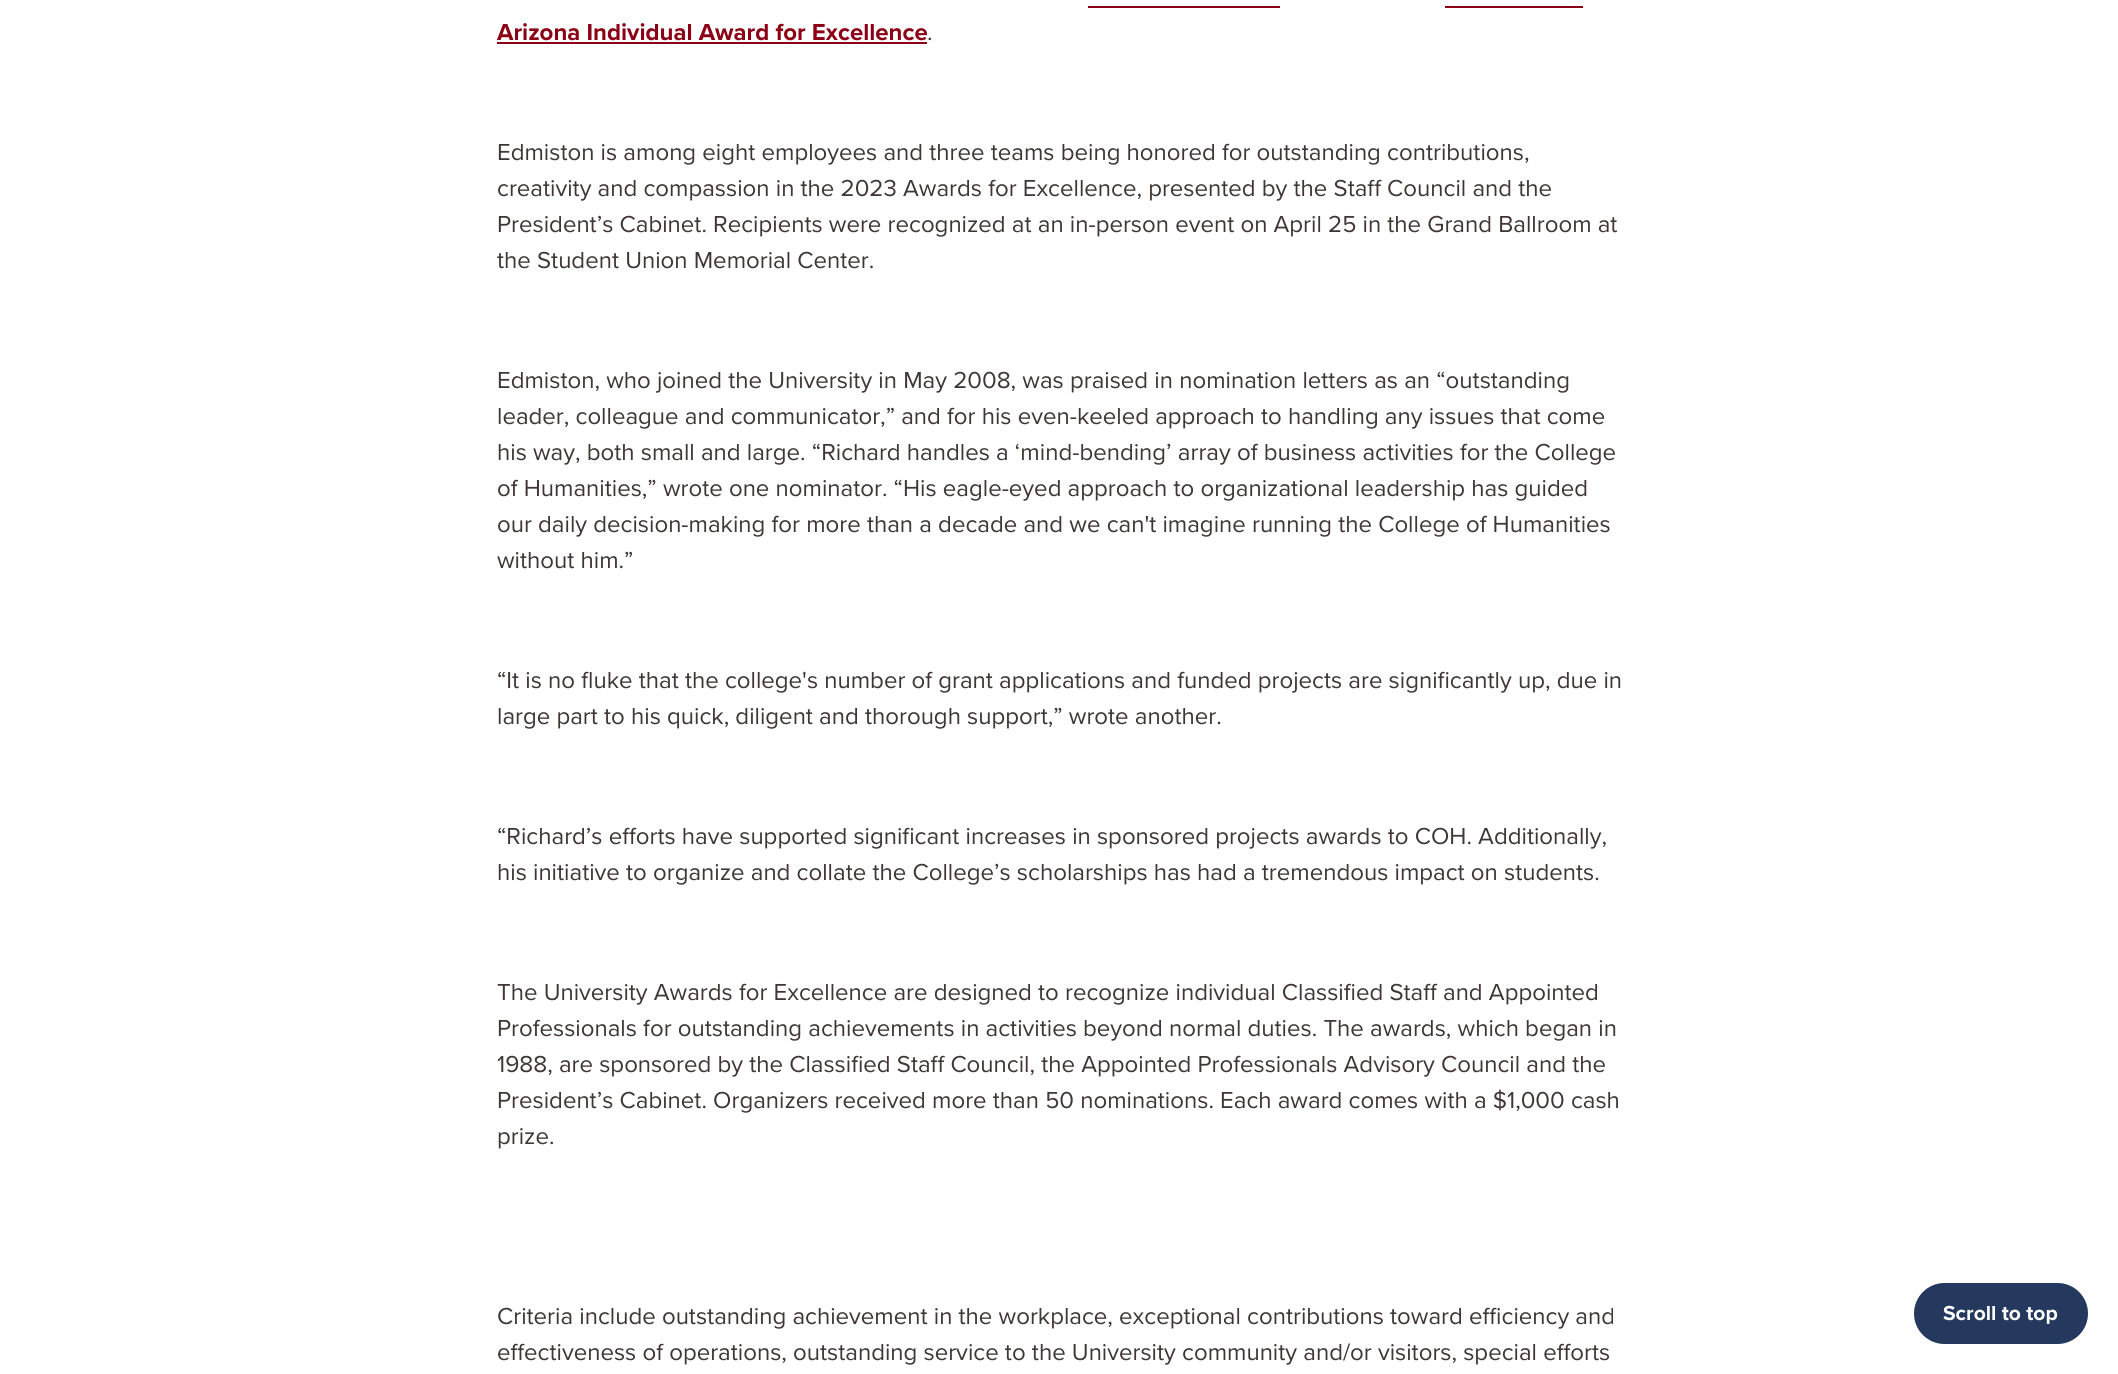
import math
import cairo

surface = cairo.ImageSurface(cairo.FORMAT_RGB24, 2118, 1374)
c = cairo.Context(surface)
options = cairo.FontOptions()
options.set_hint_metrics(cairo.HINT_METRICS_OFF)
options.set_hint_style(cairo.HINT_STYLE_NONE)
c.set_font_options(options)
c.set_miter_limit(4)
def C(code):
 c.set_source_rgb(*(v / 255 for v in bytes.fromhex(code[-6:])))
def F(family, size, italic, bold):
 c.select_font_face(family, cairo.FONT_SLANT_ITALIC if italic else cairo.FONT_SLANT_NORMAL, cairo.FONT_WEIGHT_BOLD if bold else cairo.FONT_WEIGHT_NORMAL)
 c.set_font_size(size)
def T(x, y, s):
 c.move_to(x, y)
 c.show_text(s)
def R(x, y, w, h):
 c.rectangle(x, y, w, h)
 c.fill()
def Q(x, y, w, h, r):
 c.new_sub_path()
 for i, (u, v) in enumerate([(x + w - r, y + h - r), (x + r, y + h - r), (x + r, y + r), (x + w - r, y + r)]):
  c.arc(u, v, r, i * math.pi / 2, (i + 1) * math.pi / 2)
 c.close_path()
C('ffffff')
c.paint()
F('Proxima Nova',24,0,1)
C('8b0015')
T(497,40,'Arizona Individual Award for Excellence')
R(1088,6,192,2)
R(1445,6,138,2)
F('Proxima Nova',24,0,0)
C('403635')
T(927,40,'.')
C('8b0015')
R(497,42,430,2)
C('403635')
T(497,160,'Edmiston is among eight employees and three teams being honored for outstanding contributions,')
T(497,196,'creativity and compassion in the 2023 Awards for Excellence, presented by the Staff Council and the')
T(497,232,'President’s Cabinet. Recipients were recognized at an in-person event on April 25 in the Grand Ballroom at')
T(497,268,'the Student Union Memorial Center.')
T(497,388,'Edmiston, who joined the University in May 2008, was praised in nomination letters as an “outstanding')
T(497,424,'leader, colleague and communicator,” and for his even-keeled approach to handling any issues that come')
T(497,460,'his way, both small and large. “Richard handles a ‘mind-bending’ array of business activities for the College')
T(497,496,'of Humanities,” wrote one nominator. “His eagle-eyed approach to organizational leadership has guided')
T(497,532,'our daily decision-making for more than a decade and we can\'t imagine running the College of Humanities')
T(497,568,'without him.”')
T(497,688,'“It is no fluke that the college\'s number of grant applications and funded projects are significantly up, due in')
T(497,724,'large part to his quick, diligent and thorough support,” wrote another.')
T(497,844,'“Richard’s efforts have supported significant increases in sponsored projects awards to COH. Additionally,')
T(497,880,'his initiative to organize and collate the College’s scholarships has had a tremendous impact on students.')
T(497,1000,'The University Awards for Excellence are designed to recognize individual Classified Staff and Appointed')
T(497,1036,'Professionals for outstanding achievements in activities beyond normal duties. The awards, which began in')
T(497,1072,'1988, are sponsored by the Classified Staff Council, the Appointed Professionals Advisory Council and the')
T(497,1108,'President’s Cabinet. Organizers received more than 50 nominations. Each award comes with a $1,000 cash')
T(497,1144,'prize.')
T(497,1324,'Criteria include outstanding achievement in the workplace, exceptional contributions toward efficiency and')
T(497,1360,'effectiveness of operations, outstanding service to the University community and/or visitors, special efforts')
C('24395d')
Q(1914,1283,174,61,30.5)
c.fill()
F('Proxima Nova',21,0,1)
C('ffffff')
T(1943,1320,'Scroll to top')
surface.write_to_png('o.png')
